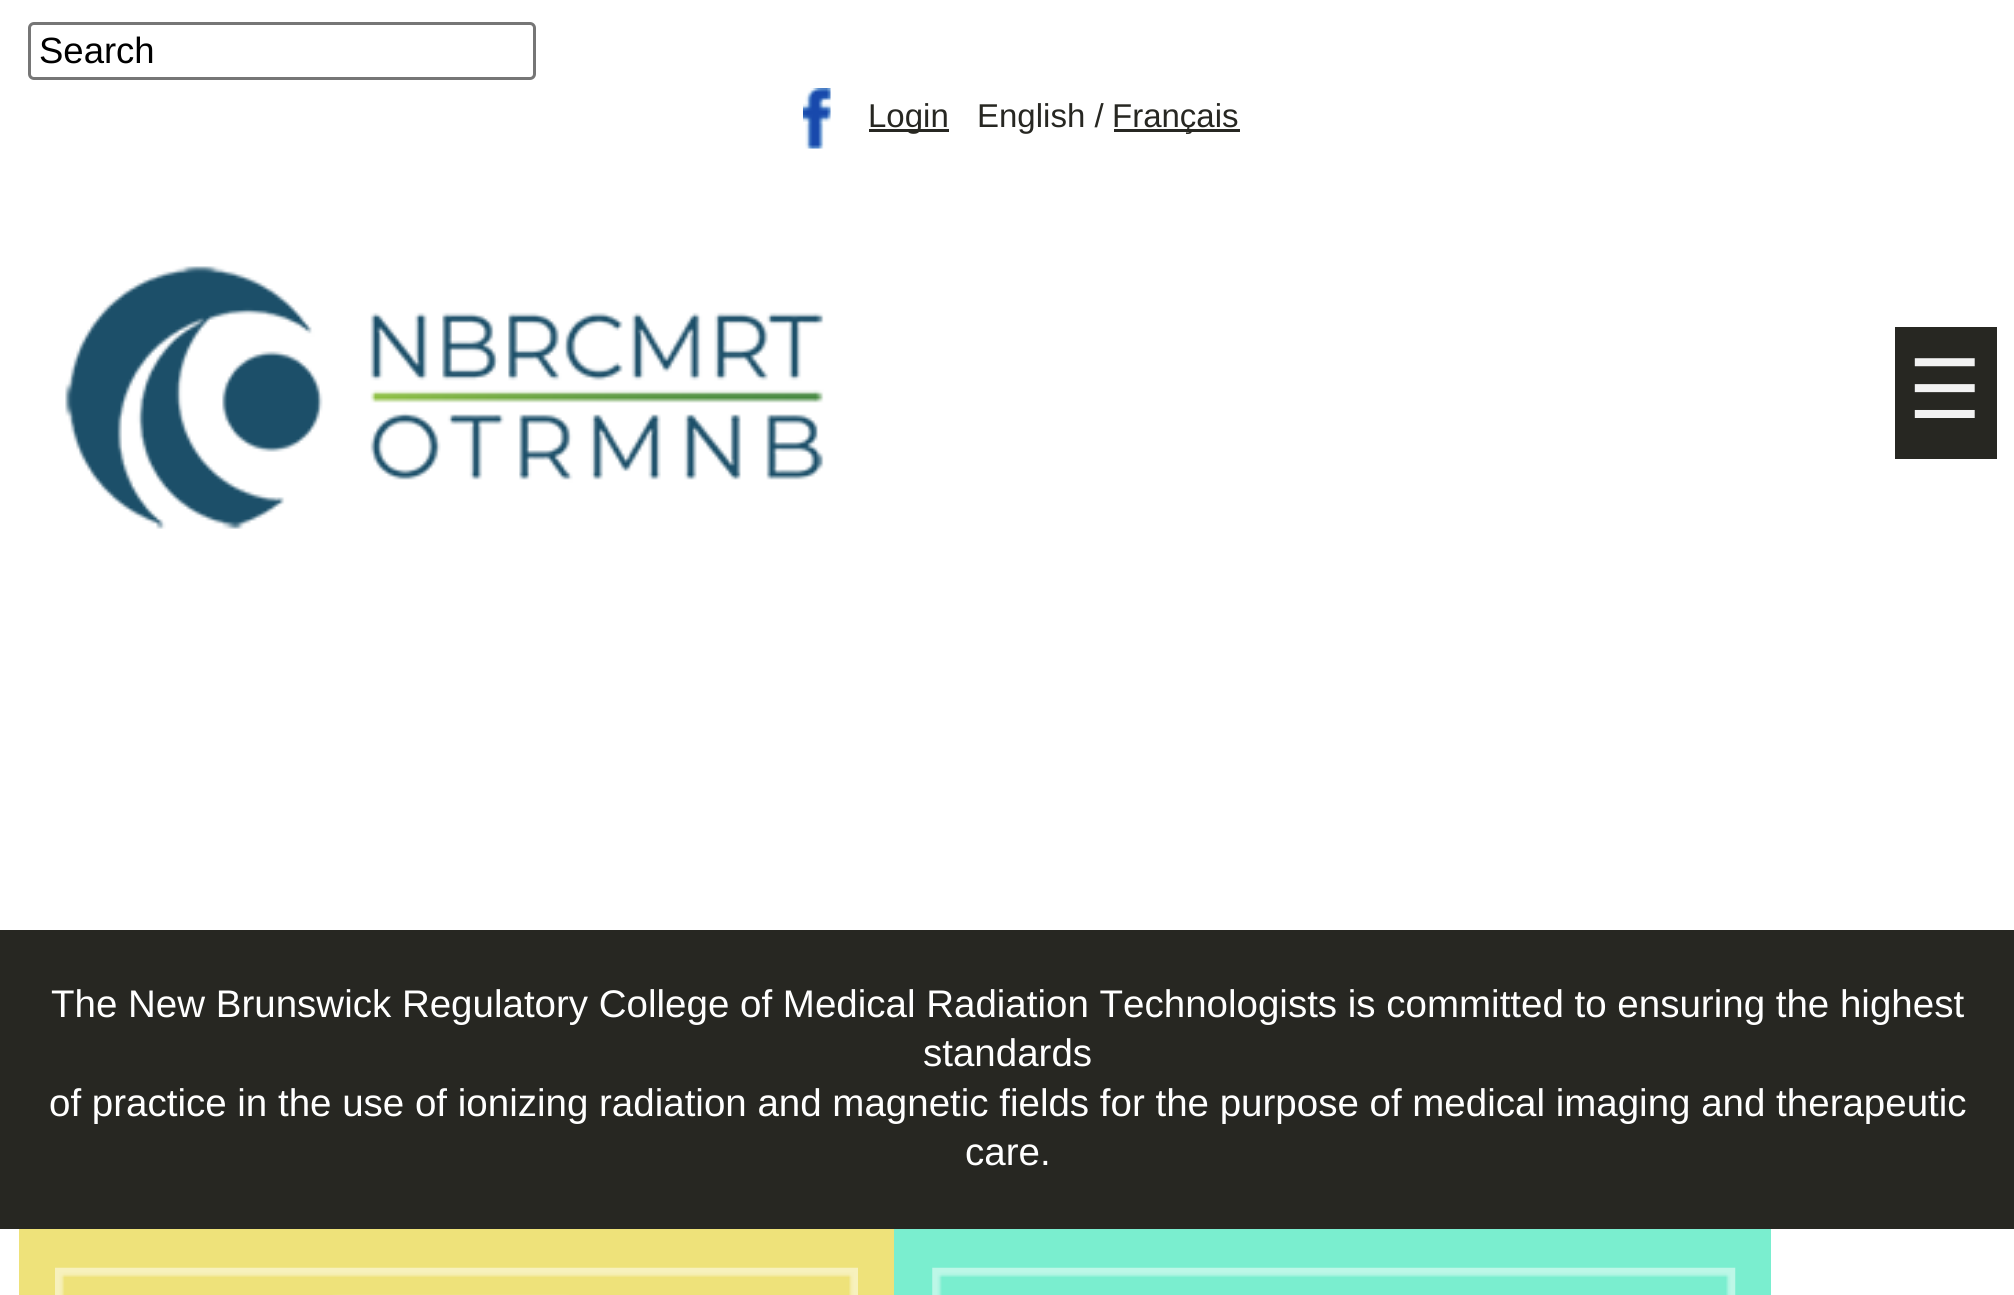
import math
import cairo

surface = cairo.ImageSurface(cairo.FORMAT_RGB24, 2014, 1295)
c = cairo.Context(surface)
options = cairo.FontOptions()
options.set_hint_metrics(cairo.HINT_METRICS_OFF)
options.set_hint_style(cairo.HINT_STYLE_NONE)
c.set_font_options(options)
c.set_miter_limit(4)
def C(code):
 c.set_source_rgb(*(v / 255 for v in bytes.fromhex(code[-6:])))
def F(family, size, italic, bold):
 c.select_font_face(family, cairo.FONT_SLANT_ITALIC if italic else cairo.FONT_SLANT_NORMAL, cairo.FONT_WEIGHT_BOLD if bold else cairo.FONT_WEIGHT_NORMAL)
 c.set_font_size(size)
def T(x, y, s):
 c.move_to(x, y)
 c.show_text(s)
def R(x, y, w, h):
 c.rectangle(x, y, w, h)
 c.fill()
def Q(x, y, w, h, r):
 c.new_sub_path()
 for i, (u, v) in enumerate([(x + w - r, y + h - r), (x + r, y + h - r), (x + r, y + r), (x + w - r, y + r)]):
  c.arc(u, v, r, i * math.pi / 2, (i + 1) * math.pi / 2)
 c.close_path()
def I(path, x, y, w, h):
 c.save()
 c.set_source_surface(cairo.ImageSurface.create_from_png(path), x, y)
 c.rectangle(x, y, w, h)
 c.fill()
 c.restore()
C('ffffff')
c.paint()
Q(29.5,23.5,505,55,4.5)
C('767676')
c.set_line_width(3)
c.stroke()
F('Liberation Sans',36.5,0,0)
C('000000')
T(39,63,'Search')
I('1.png',803,88,28,61)
C('272722')
R(869,129,80,3)
F('Liberation Sans',33,0,0)
T(868,127,'Login')
T(977,127,'English /')
R(1114,129,126,3)
T(1112,127,'Français')
I('2.png',65,266,759,263)
R(1895,327,102,132)
F('DejaVu Sans',82,0,0)
C('f2f2f2')
T(1908,418,'☰')
C('272722')
R(0,930,2014,299)
F('Liberation Sans',38.5,0,0)
C('ffffff')
T(51,1017,'The New Brunswick Regulatory College of Medical Radiation Technologists is committed to ensuring the highest')
T(923,1066,'standards')
T(49,1116,'of practice in the use of ionizing radiation and magnetic fields for the purpose of medical imaging and therapeutic')
T(965,1165,'care.')
C('eee27a')
R(19,1229,875,66)
I('3.png',55,1267,803,28)
C('7aeecf')
R(894,1229,877,66)
I('4.png',932,1267,804,28)
surface.write_to_png('o.png')
